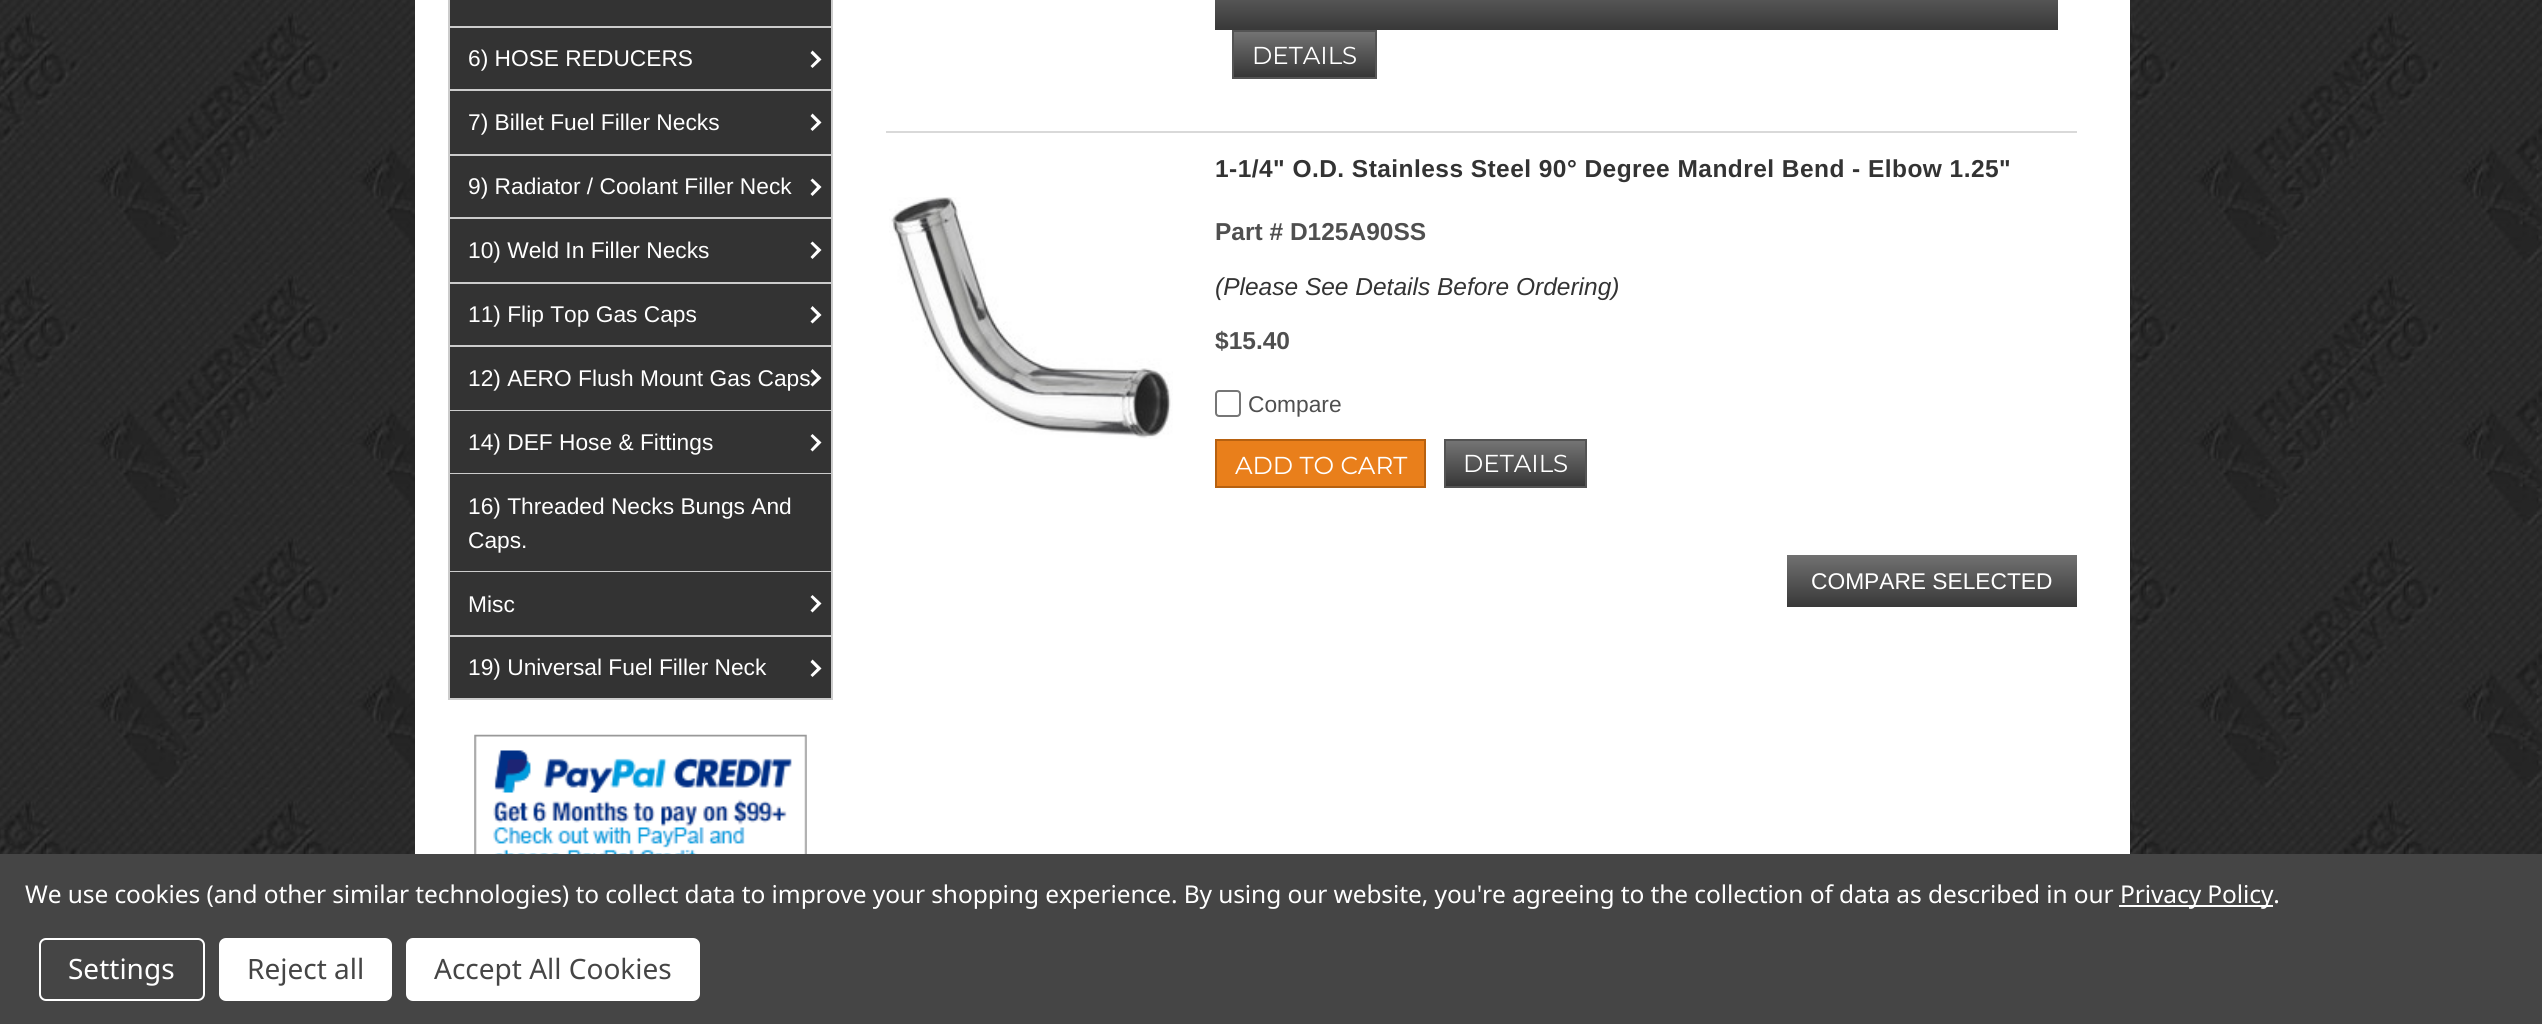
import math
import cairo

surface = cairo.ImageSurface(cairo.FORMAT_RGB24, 2542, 1024)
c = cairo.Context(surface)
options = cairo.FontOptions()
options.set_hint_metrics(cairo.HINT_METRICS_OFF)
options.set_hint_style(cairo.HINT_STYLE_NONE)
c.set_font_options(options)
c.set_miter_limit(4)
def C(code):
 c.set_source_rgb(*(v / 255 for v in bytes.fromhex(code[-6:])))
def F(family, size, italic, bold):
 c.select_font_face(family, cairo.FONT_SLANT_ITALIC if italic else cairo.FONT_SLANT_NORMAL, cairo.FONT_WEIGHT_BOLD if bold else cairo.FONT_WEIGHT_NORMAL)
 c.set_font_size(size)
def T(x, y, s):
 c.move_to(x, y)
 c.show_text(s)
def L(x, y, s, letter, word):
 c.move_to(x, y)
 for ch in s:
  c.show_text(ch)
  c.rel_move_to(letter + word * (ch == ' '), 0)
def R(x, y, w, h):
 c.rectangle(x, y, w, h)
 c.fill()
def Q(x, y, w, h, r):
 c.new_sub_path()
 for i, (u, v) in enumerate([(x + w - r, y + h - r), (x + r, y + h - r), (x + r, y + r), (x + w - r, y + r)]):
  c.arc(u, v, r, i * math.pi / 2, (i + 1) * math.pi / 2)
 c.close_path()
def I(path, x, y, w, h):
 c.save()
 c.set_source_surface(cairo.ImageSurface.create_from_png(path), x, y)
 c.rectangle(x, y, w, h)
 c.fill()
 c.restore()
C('ffffff')
c.paint()
I('1.png',0,0,2542,854)
C('ffffff')
R(415,0,1715,854)
C('cccccc')
R(831,0,2,700)
R(448,0,2,700)
C('333333')
R(450,0,381,26)
C('cccccc')
R(450,26,381,2)
C('333333')
R(450,28,381,61)
C('cccccc')
R(450,89,381,2)
F('Liberation Sans',22.75,0,0)
C('ffffff')
T(468,66,'6) HOSE REDUCERS')
c.new_path()
c.move_to(812.5,50.5)
c.line_to(810.5,53)
c.line_to(817,59.5)
c.line_to(810.5,66)
c.line_to(812.5,68)
c.line_to(821.5,59.5)
c.close_path()
c.fill()
C('333333')
R(450,91,381,63)
C('cccccc')
R(450,154,381,2)
C('ffffff')
T(468,130,'7) Billet Fuel Filler Necks')
c.new_path()
c.move_to(812.5,113.5)
c.line_to(810.5,116)
c.line_to(817,122.5)
c.line_to(810.5,129)
c.line_to(812.5,131)
c.line_to(821.5,122.5)
c.close_path()
c.fill()
C('333333')
R(450,156,381,61)
C('cccccc')
R(450,217,381,2)
C('ffffff')
T(468,194,'9) Radiator / Coolant Filler Neck')
c.new_path()
c.move_to(812.5,178.5)
c.line_to(810.5,180.5)
c.line_to(817,187)
c.line_to(810.5,194)
c.line_to(812.5,196)
c.line_to(821.5,187)
c.close_path()
c.fill()
C('333333')
R(450,219,381,63)
C('cccccc')
R(450,282,381,2)
C('ffffff')
T(468,258,'10) Weld In Filler Necks')
c.new_path()
c.move_to(812.5,241.5)
c.line_to(810.5,243.5)
c.line_to(817,250)
c.line_to(810.5,257)
c.line_to(812.5,259)
c.line_to(821.5,250)
c.close_path()
c.fill()
C('333333')
R(450,284,381,61)
C('cccccc')
R(450,345,381,2)
C('ffffff')
T(468,322,'11) Flip Top Gas Caps')
c.new_path()
c.move_to(812.5,306)
c.line_to(810.5,308.5)
c.line_to(817,315)
c.line_to(810.5,321.5)
c.line_to(812.5,323.5)
c.line_to(821.5,315)
c.close_path()
c.fill()
C('333333')
R(450,347,381,63)
C('cccccc')
R(450,410,381,1)
C('ffffff')
T(468,386,'12) AERO Flush Mount Gas Caps')
c.new_path()
c.move_to(812.5,369)
c.line_to(810.5,371.5)
c.line_to(817,378)
c.line_to(810.5,384.5)
c.line_to(812.5,386.5)
c.line_to(821.5,378)
c.close_path()
c.fill()
C('333333')
R(450,411,381,62)
C('cccccc')
R(450,473,381,1)
C('ffffff')
T(468,450,'14) DEF Hose & Fittings')
c.new_path()
c.move_to(812.5,434)
c.line_to(810.5,436)
c.line_to(817,442.5)
c.line_to(810.5,449.5)
c.line_to(812.5,451.5)
c.line_to(821.5,442.5)
c.close_path()
c.fill()
C('333333')
R(450,474,381,97)
C('cccccc')
R(450,571,381,1)
C('ffffff')
T(468,514,'16) Threaded Necks Bungs And')
T(468,548,'Caps.')
C('333333')
R(450,572,381,63)
C('cccccc')
R(450,635,381,2)
C('ffffff')
T(468,612,'Misc')
c.new_path()
c.move_to(812.5,595)
c.line_to(810.5,597)
c.line_to(817,603.5)
c.line_to(810.5,610.5)
c.line_to(812.5,612.5)
c.line_to(821.5,603.5)
c.close_path()
c.fill()
C('333333')
R(450,637,381,61)
C('cccccc')
R(450,698,381,2)
C('ffffff')
T(468,675,'19) Universal Fuel Filler Neck')
c.new_path()
c.move_to(812.5,659.5)
c.line_to(810.5,662)
c.line_to(817,668.5)
c.line_to(810.5,675)
c.line_to(812.5,677)
c.line_to(821.5,668.5)
c.close_path()
c.fill()
I('2.png',474,734,333,120)
gradient = cairo.LinearGradient(1636,-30,1636,30)
gradient.add_color_stop_rgba(0,0.118,0.341,0.6,1)
gradient.add_color_stop_rgba(0,0.125,0.486,0.792,1)
gradient.add_color_stop_rgba(0,0.443,0.443,0.443,1)
gradient.add_color_stop_rgba(1,0.22,0.22,0.22,1)
c.set_source(gradient)
R(1215,0,843,30)
gradient = cairo.LinearGradient(1305,31,1305,77)
gradient.add_color_stop_rgba(0,0.455,0.455,0.455,1)
gradient.add_color_stop_rgba(1,0.212,0.212,0.212,1)
c.set_source(gradient)
R(1234,32,141,45)
c.rectangle(1233,31,143,47)
C('545454')
c.stroke()
F('Montserrat Thin',24.5,0,0)
C('ffffff')
T(1252,64,'DETAILS')
C('d9d9d9')
R(886,131,1191,2)
I('3.png',889,197,284,242)
F('Liberation Sans',24.5,0,1)
C('333333')
L(1215,177,'1-1/4" O.D. Stainless Steel 90° Degree Mandrel Bend - Elbow 1.25"',.45,0)
C('4f4f4f')
T(1215,240,'Part # D125A90SS')
F('Liberation Sans',24.5,1,0)
C('333333')
T(1215,295,'(Please See Details Before Ordering)')
F('Liberation Sans',24.5,0,1)
C('4f4f4f')
T(1215,349,'$15.40')
Q(1216,391,24,25,3)
C('767676')
c.stroke()
F('Liberation Sans',22.75,0,0)
C('4f4f4f')
T(1248,412,'Compare')
C('e97f1b')
c.rectangle(1216,440,209,47)
c.fill_preserve()
C('b76110')
c.stroke()
F('Montserrat Thin',24.5,0,0)
C('ffffff')
T(1235,474,'ADD TO CART')
gradient = cairo.LinearGradient(1516,441,1516,487)
gradient.add_color_stop_rgba(0,0.455,0.455,0.455,1)
gradient.add_color_stop_rgba(1,0.212,0.212,0.212,1)
c.set_source(gradient)
R(1446,441,139,45)
c.rectangle(1445,440,141,47)
C('545454')
c.stroke()
C('ffffff')
T(1463,472,'DETAILS')
gradient = cairo.LinearGradient(1932,555,1932,607)
gradient.add_color_stop_rgba(0,0.118,0.341,0.6,1)
gradient.add_color_stop_rgba(0,0.125,0.486,0.792,1)
gradient.add_color_stop_rgba(0,0.443,0.443,0.443,1)
gradient.add_color_stop_rgba(1,0.22,0.22,0.22,1)
c.set_source(gradient)
R(1787,555,290,52)
F('Liberation Sans',22.75,0,0)
C('ffffff')
T(1811,589,'COMPARE SELECTED')
C('454545')
R(0,854,2542,170)
F('Noto Sans',24.5,0,0)
C('ffffff')
L(25,903,'We use cookies (and other similar technologies) to collect data to improve your shopping experience. By using our website, you\'re agreeing to the collection of data as described in our',-.09,0)
R(2119,905,154,2)
L(2120,903,'Privacy Policy.',-.09,0)
Q(40,939,164,61,6)
c.stroke()
F('Noto Sans',28,0,0)
T(68,979,'Settings')
Q(219,938,173,63,7)
c.fill()
C('454545')
T(247,979,'Reject all')
C('ffffff')
Q(406,938,294,63,7)
c.fill()
C('454545')
T(434,979,'Accept All Cookies')
surface.write_to_png('o.png')
